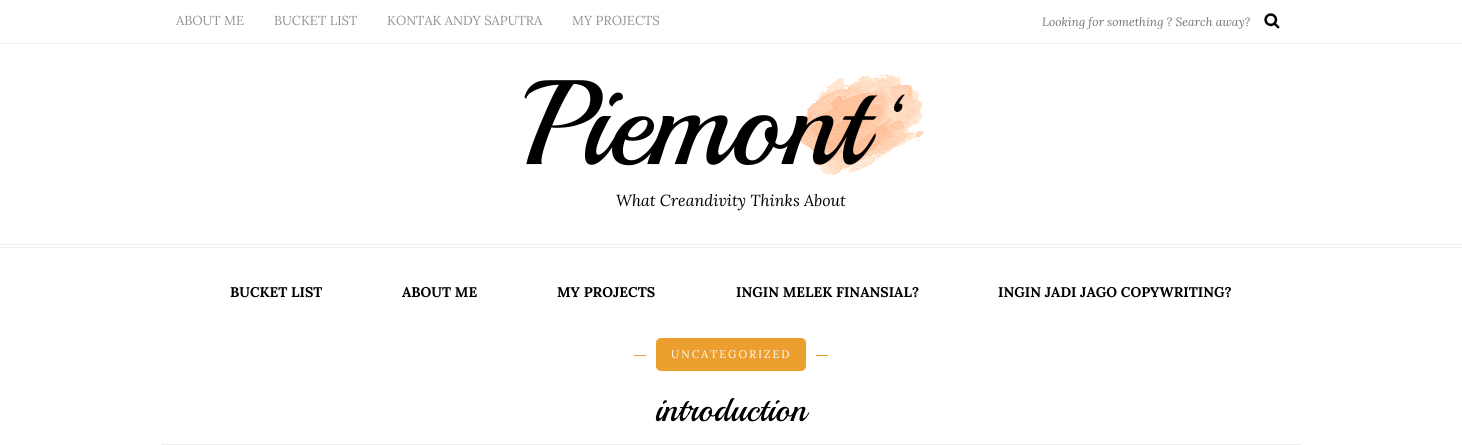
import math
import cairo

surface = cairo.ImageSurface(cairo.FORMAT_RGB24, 1462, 445)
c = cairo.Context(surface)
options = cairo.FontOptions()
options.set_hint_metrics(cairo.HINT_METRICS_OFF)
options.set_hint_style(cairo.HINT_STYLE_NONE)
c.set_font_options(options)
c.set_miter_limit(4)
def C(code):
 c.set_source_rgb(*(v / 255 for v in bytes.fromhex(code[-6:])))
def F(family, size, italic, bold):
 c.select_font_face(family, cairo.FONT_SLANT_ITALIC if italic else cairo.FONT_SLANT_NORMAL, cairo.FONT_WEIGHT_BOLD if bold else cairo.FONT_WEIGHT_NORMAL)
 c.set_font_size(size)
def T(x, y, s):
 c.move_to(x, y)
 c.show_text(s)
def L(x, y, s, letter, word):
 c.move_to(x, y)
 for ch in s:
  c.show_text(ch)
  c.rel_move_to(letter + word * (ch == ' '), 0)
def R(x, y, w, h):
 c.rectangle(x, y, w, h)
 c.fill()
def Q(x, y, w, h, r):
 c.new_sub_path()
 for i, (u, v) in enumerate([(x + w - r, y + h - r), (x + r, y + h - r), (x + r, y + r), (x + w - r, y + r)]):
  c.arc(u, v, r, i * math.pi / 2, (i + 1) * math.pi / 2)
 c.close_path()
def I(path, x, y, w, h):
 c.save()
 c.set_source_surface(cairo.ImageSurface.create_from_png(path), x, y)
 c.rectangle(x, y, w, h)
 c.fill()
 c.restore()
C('ffffff')
c.paint()
C('eeeeee')
R(0,43,1462,1)
F('Lora',13,0,0)
C('8f9294')
T(176,25,'ABOUT ME')
T(274,25,'BUCKET LIST')
T(387,25,'KONTAK ANDY SAPUTRA')
T(572,25,'MY PROJECTS')
c.save()
c.rectangle(1035,14,216,15)
c.clip()
F('Lora',12,1,0)
C('757575')
T(1042,26,'Looking for something ? Search away?')
c.restore()
I('1.png',1264,13,16,16)
I('2.png',524,74,400,101)
F('Lora',16,1,0)
C('000000')
T(616,206,'What Creandivity Thinks About')
C('eeeeee')
R(0,244,1462,1)
R(0,247,1462,1)
F('Lora',14,0,1)
C('000000')
T(230,297,'BUCKET LIST')
T(402,297,'ABOUT ME')
T(557,297,'MY PROJECTS')
T(736,297,'INGIN MELEK FINANSIAL?')
T(998,297,'INGIN JADI JAGO COPYWRITING?')
C('ec9f2e')
Q(656,338,150,33,5)
c.fill()
R(634,355,12,1)
F('Lora',11,0,0)
C('ffffff')
L(671,358,'UNCATEGORIZED',2,0)
C('ec9f2e')
R(816,355,12,1)
F('Playball',35,0,0)
C('000000')
T(655,421,'introduction')
c.rectangle(161.5,444.5,1139,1)
C('eeeeee')
c.set_line_width(1)
c.stroke()
surface.write_to_png('o.png')
